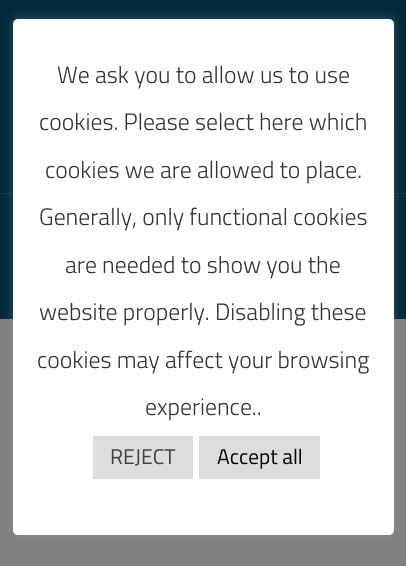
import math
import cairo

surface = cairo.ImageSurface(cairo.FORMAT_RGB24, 406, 566)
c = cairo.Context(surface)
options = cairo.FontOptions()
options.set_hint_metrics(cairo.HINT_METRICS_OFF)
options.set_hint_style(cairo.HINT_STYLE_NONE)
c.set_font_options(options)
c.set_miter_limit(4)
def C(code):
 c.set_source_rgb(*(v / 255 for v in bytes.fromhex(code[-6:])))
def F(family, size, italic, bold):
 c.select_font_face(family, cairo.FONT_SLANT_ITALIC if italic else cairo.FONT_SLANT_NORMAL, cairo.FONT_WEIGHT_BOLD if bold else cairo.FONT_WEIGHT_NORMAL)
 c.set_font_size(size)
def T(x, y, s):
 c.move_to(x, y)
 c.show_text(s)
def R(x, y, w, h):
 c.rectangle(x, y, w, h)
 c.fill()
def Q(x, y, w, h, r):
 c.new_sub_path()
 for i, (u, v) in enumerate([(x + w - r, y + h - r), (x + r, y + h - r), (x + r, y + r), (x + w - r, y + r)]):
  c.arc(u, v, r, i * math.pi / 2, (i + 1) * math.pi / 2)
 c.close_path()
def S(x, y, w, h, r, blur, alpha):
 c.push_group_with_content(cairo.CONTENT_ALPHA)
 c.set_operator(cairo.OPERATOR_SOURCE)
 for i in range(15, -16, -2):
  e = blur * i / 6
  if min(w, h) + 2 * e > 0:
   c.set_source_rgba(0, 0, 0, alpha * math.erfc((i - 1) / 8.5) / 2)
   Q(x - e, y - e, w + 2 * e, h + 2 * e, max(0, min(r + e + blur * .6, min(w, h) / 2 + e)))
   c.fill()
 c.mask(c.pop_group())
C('808080')
c.paint()
C('00283c')
R(0,0,406,13)
C('00273b')
R(0,13,406,118)
C('00283c')
R(0,131,406,188)
C('003e5d')
R(0,193,406,1)
C('acabab')
S(13,18,381,516,5,6,.3)
C('ffffff')
Q(13,19,381,516,5)
c.fill()
F('Titillium Web Light',23.75,0,0)
C('333333')
T(57,83,'We ask you to allow us to use')
T(39,130,'cookies. Please select here which')
T(45,178,'cookies we are allowed to place.')
T(39,225,'Generally, only functional cookies')
T(65,273,'are needed to show you the')
T(39,320,'website properly. Disabling these')
T(37,368,'cookies may affect your browsing')
T(145,415,'experience..')
C('dcdddc')
R(93,436,100,43)
F('Titillium Web',21.25,0,0)
C('3f3f3f')
T(110,464,'REJECT')
C('dcdddc')
R(199,436,121,43)
C('020202')
T(217,464,'Accept all')
surface.write_to_png('o.png')
